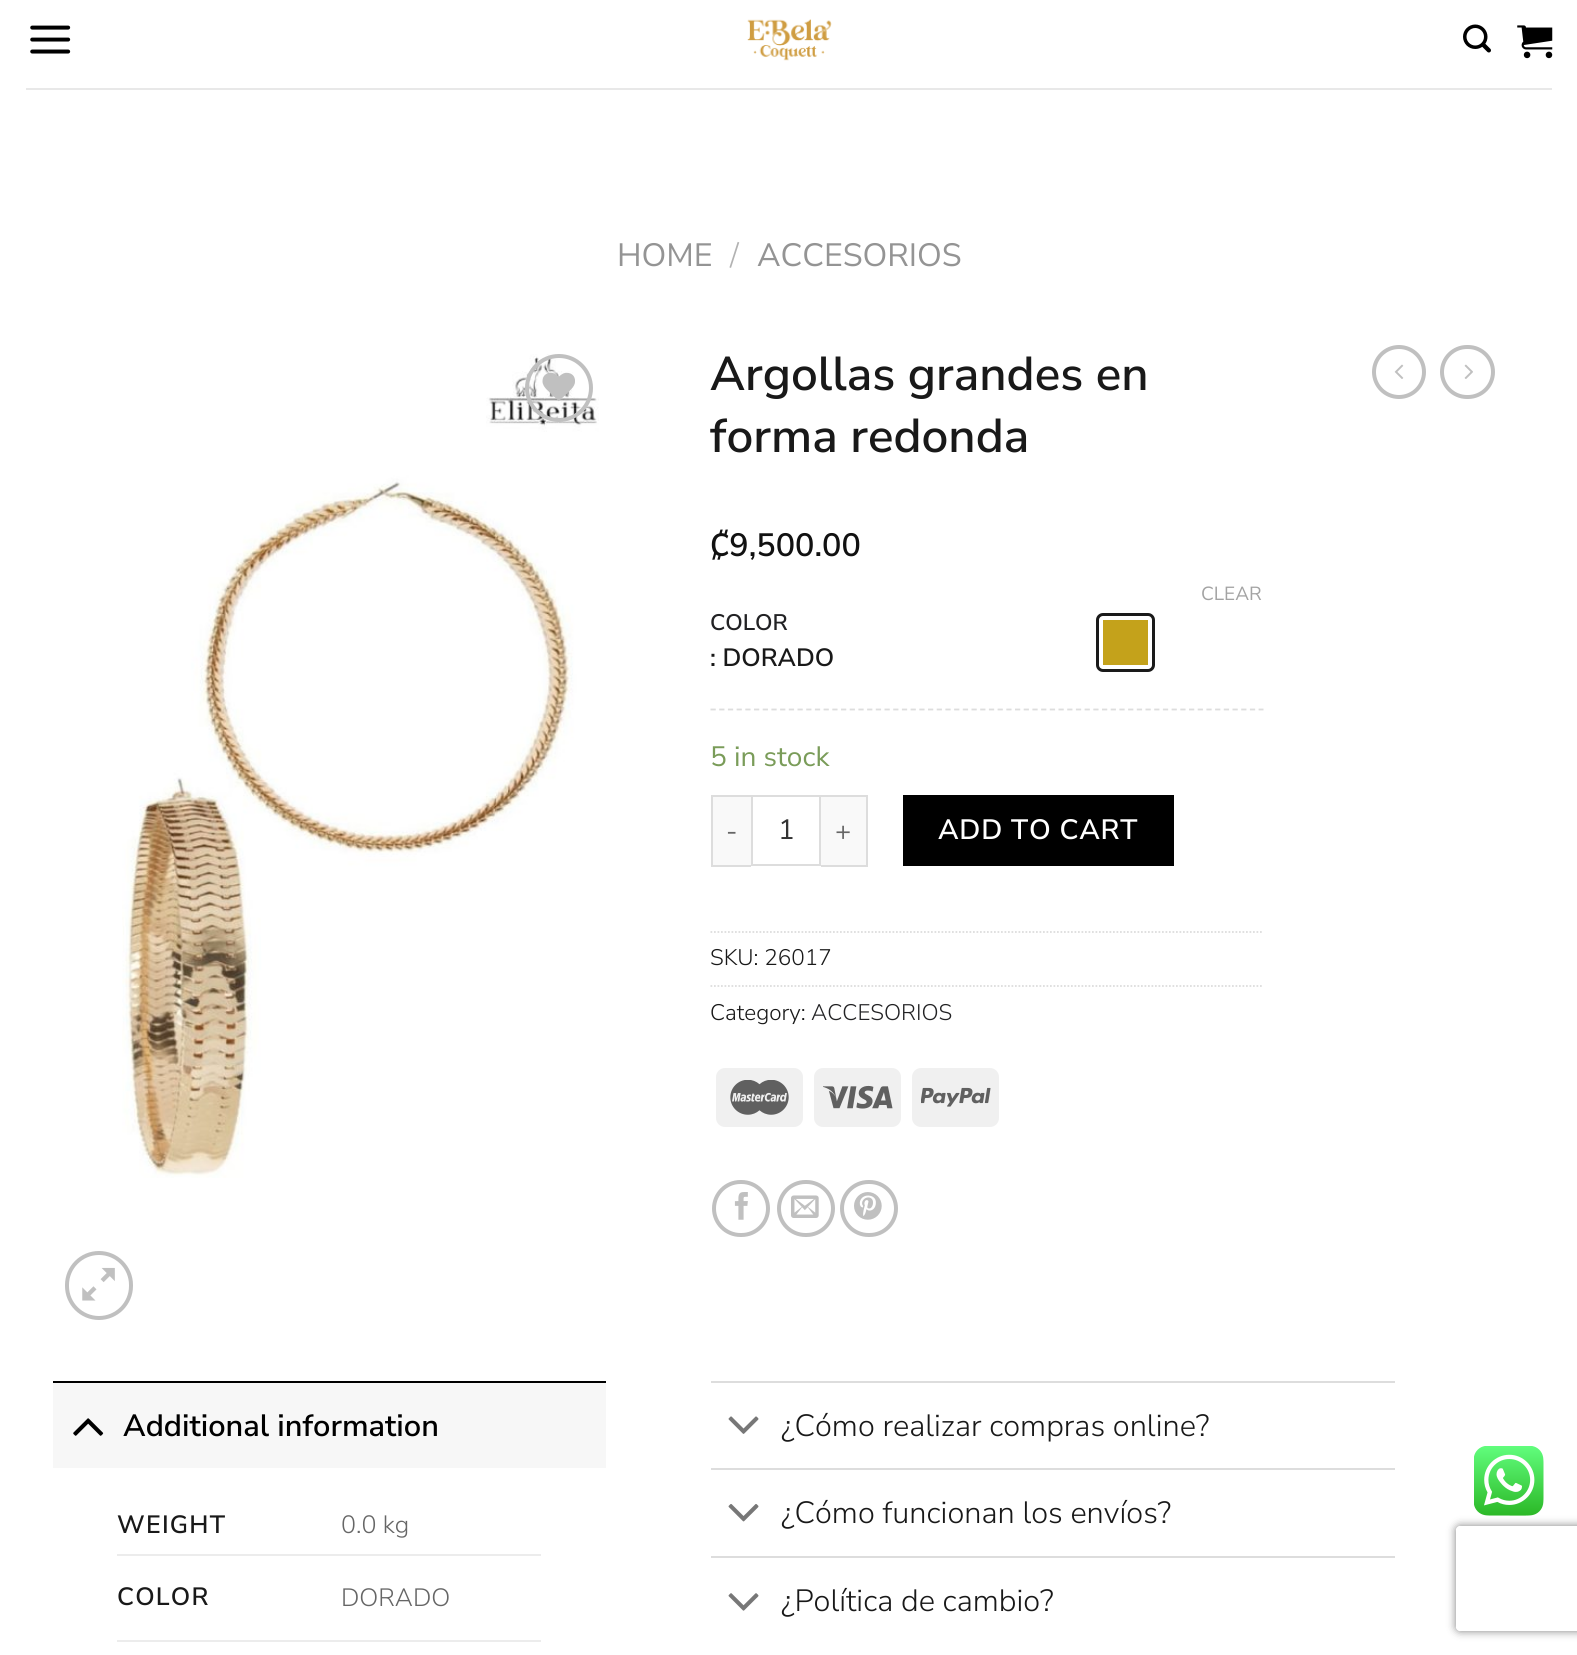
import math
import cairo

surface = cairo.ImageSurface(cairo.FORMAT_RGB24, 1577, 1655)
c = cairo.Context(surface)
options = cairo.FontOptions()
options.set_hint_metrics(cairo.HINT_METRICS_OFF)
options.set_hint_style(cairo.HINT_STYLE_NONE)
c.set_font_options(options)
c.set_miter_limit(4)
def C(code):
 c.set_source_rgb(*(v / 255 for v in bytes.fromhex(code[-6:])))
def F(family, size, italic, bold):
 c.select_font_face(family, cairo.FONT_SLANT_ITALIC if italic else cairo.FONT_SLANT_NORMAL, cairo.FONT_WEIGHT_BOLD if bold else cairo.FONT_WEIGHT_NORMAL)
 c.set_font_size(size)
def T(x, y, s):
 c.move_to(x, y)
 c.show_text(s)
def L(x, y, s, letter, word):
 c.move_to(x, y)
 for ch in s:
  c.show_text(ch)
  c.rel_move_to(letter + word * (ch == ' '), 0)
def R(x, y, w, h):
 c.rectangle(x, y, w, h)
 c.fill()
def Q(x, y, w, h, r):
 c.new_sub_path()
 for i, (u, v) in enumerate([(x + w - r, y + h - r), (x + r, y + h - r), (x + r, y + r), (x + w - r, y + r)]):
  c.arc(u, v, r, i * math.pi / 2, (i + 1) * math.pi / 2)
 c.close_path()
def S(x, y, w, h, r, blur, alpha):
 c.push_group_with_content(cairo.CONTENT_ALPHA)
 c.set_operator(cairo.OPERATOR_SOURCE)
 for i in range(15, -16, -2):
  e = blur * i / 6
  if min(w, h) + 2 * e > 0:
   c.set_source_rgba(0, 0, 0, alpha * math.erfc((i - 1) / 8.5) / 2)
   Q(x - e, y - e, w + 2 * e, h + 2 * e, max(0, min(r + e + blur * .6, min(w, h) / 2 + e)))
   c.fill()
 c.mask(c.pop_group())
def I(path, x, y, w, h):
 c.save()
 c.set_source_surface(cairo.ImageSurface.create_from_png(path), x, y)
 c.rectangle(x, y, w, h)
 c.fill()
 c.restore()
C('ffffff')
c.paint()
I('1.png',30,25,41,29)
I('2.png',747,19,85,42)
I('3.png',1463,24,28,29)
I('4.png',1517,25,36,34)
C('e8e8e8')
R(26,88,1526,2)
F('Nunito Sans',32.25,0,0)
C('949494')
T(617,266,'HOME')
F('Nunito Sans Light',32.25,0,0)
C('b2b2b2')
T(730,266,'/')
F('Nunito Sans',32.25,0,0)
C('949494')
T(757,266,'ACCESORIOS')
I('5.png',122,354,477,824)
c.arc(559,388,32,0,2 * math.pi)
C('c0c0c0')
c.set_line_width(4)
c.stroke()
I('6.png',542,372,33,29)
Q(67,1253,64,65,32)
c.stroke()
I('7.png',82,1267,33,34)
F('Nunito Sans SemiBold',47.5,0,0)
C('191919')
T(710,390,'Argollas grandes en')
T(710,452,'forma redonda')
F('Nunito Sans SemiBold',32.25,0,0)
C('111111')
T(710,556,'₡9,500.00')
F('Nunito Sans',19,0,0)
C('a3a3a3')
T(1201,600,'CLEAR')
Q(1098,615,55,55,5)
C('1a1a1a')
c.stroke()
C('ffffff')
Q(1099,616,53,53,4)
c.fill()
C('c4a21b')
R(1103,620,45,45)
F('Nunito Sans SemiBold',22.5,0,0)
C('222224')
T(710,630,'COLOR')
F('Nunito Sans SemiBold',25,0,0)
C('191919')
T(710,666,': DORADO')
c.new_path()
c.move_to(710.5,709.5)
c.line_to(1263.5,709.5)
C('dddddd')
c.set_line_width(1.8)
c.set_dash([5.25,3.45])
c.stroke()
F('Nunito Sans',28,0,0)
C('7a9c59')
T(710,766,'5 in stock')
C('f9f9f9')
R(713,797,38,68)
C('dddddd')
R(711,795,40,2)
R(711,865,40,2)
R(711,795,2,71)
F('Nunito Sans',27,0,0)
C('666666')
L(726,840,'-',1,0)
c.rectangle(752,796,68,69)
C('dddddd')
c.set_line_width(2)
c.set_dash([])
c.stroke()
F('Nunito Sans',28,0,0)
C('333333')
T(778,839,'1')
C('f9f9f9')
R(821,797,45,68)
C('dddddd')
R(821,795,47,2)
R(866,795,2,71)
R(821,865,47,2)
F('Nunito Sans',27,0,0)
C('666666')
L(835,840,'+',1,0)
C('000000')
R(903,795,271,71)
F('Nunito Sans SemiBold',28,0,0)
C('ffffff')
L(938,839,'ADD TO CART',.75,0)
c.new_path()
c.move_to(710.5,932)
c.line_to(1263.5,932)
C('dddddd')
c.set_line_width(1.8)
c.set_dash([1.75,1.75])
c.stroke()
F('Nunito Sans Light',22.5,0,0)
C('191919')
T(710,965,'SKU: 26017')
c.new_path()
c.move_to(710.5,986)
c.line_to(1263.5,986)
C('dddddd')
c.stroke()
C('191919')
T(710,1020,'Category:')
C('222224')
T(811,1020,'ACCESORIOS')
C('f0f0f0')
Q(716,1068,87,59,9)
c.fill()
I('8.png',730,1080,59,35)
Q(814,1068,87,59,9)
c.fill()
I('9.png',823,1085,70,24)
Q(912,1068,87,59,9)
c.fill()
I('10.png',921,1087,70,20)
Q(714,1182,54,53,26.5)
C('c0c0c0')
c.set_line_width(4)
c.set_dash([])
c.stroke()
I('11.png',734,1192,14,28)
Q(779,1182,54,53,26.5)
c.stroke()
I('12.png',791,1195,28,23)
Q(842,1182,54,53,26.5)
c.stroke()
I('13.png',854,1192,28,28)
c.arc(1399,372,25,0,2 * math.pi)
c.stroke()
I('14.png',1394,364,10,15)
Q(1442,347,51,50,25)
c.stroke()
I('15.png',1464,364,9,15)
C('f7f7f7')
R(53,1383,553,85)
C('000000')
R(53,1381,553,2)
I('16.png',73,1418,31,18)
F('Nunito Sans SemiBold',30.75,0,0)
T(123,1436,'Additional information')
C('ececec')
R(117,1554,424,2)
F('Nunito Sans SemiBold',25,0,0)
C('191919')
L(117,1533,'WEIGHT',1.25,0)
F('Nunito Sans Light',25,0,0)
C('666666')
T(341,1533,'0.0 kg')
C('ececec')
R(117,1640,424,2)
F('Nunito Sans SemiBold',25,0,0)
C('191919')
L(117,1605,'COLOR',1.25,0)
F('Nunito Sans Light',25,0,0)
C('666666')
T(341,1606,'DORADO')
C('dddddd')
R(711,1381,684,2)
I('17.png',728,1416,31,18)
F('Nunito Sans Light',30.75,0,0)
C('191919')
T(781,1436,'¿Cómo realizar compras online?')
C('dddddd')
R(711,1468,684,2)
I('18.png',728,1504,31,18)
C('191919')
T(781,1523,'¿Cómo funcionan los envíos?')
C('dddddd')
R(711,1556,684,2)
I('19.png',728,1593,31,18)
C('191919')
T(781,1611,'¿Política de cambio?')
c.save()
c.set_fill_rule(cairo.FILL_RULE_EVEN_ODD)
c.new_path()
c.move_to(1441,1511)
c.line_to(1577,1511)
c.line_to(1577,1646)
c.line_to(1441,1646)
c.close_path()
c.move_to(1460,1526)
c.line_to(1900,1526)
c.curve_to(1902,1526,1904,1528,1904,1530)
c.line_to(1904,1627)
c.curve_to(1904,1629,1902,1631,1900,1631)
c.line_to(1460,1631)
c.curve_to(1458,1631,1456,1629,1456,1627)
c.line_to(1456,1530)
c.curve_to(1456,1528,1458,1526,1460,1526)
c.close_path()
c.clip()
C('808080')
S(1456,1526,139,105,4,4.5,1)
c.restore()
I('20.png',1474,1446,70,70)
surface.write_to_png('o.png')
